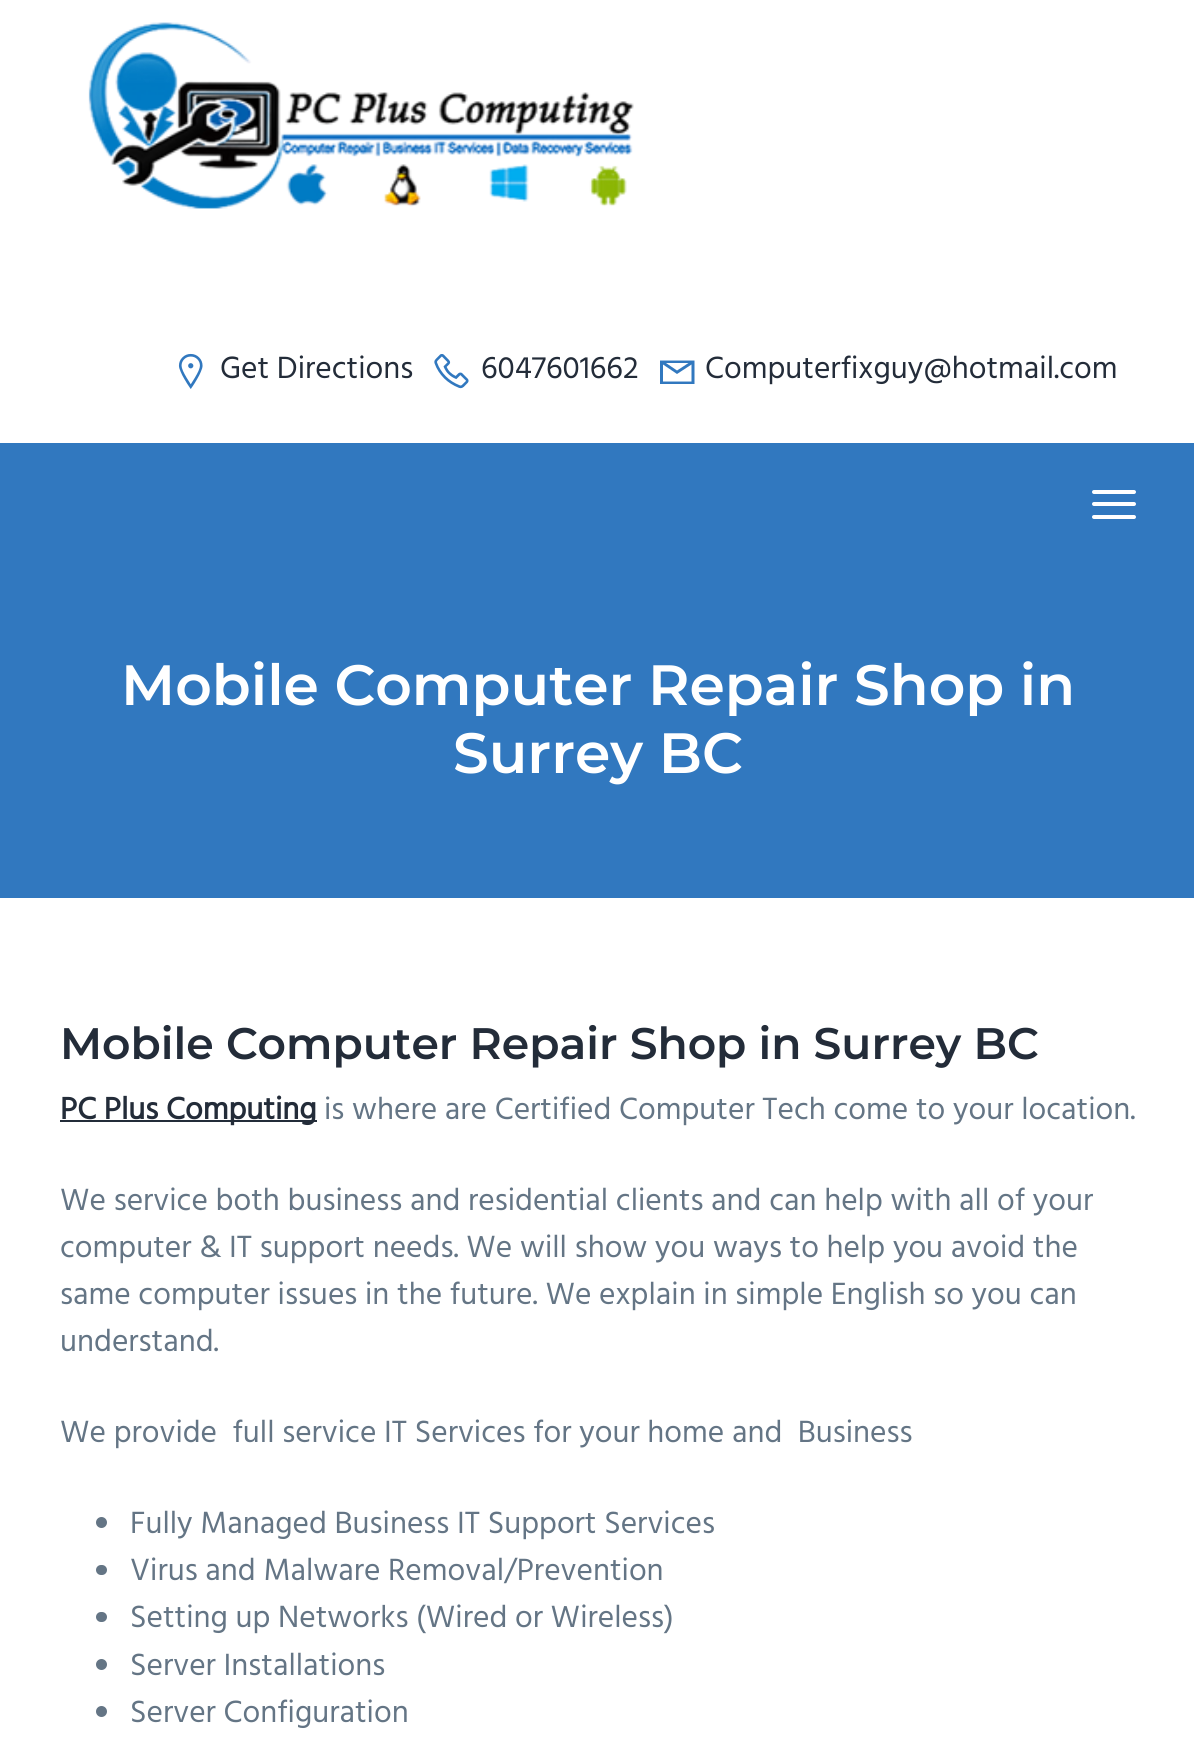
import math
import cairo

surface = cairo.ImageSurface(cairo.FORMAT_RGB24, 1194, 1751)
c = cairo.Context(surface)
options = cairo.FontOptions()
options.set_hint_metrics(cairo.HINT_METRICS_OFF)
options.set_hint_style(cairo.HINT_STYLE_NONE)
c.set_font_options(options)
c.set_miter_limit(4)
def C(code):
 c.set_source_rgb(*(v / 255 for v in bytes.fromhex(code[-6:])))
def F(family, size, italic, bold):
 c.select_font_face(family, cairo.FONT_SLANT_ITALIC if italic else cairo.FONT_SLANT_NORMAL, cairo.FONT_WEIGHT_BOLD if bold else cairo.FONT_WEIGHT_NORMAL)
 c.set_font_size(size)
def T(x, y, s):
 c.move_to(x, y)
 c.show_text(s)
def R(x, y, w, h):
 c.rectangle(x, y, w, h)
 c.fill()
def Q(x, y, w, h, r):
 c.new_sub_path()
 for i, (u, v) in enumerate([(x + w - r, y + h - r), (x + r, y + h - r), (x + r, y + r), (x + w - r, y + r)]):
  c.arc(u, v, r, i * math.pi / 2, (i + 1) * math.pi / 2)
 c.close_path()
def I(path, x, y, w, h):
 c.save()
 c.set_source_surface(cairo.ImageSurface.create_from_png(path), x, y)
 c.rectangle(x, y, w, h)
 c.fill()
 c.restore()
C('ffffff')
c.paint()
I('1.png',88,22,546,187)
I('2.png',178,353,25,36)
F('Hind',31.5,0,0)
C('232c39')
T(220,378,'Get Directions')
I('3.png',434,354,35,35)
T(481,378,'6047601662')
C('3178bf')
c.new_path()
c.move_to(660,360.5)
c.line_to(694.5,360.5)
c.line_to(694.5,384)
c.line_to(660,384)
c.close_path()
c.move_to(666,363)
c.line_to(677,370.5)
c.line_to(688.5,363)
c.close_path()
c.move_to(663,364.5)
c.line_to(663,381.5)
c.line_to(691.5,381.5)
c.line_to(691.5,364.5)
c.line_to(677,374)
c.close_path()
c.fill()
C('232c39')
T(705,378,'Computerfixguy@hotmail.com')
C('3178bf')
R(0,443,1194,455)
C('ffffff')
Q(1092,502,44,4,2)
c.fill()
Q(1092,490,44,4,2)
c.fill()
Q(1092,515,44,4,2)
c.fill()
F('Montserrat Thin',56.75,0,0)
T(121,705,'Mobile Computer Repair Shop in')
T(453,773,'Surrey BC')
F('Montserrat Thin',44.1,0,0)
C('232c39')
T(60,1059,'Mobile Computer Repair Shop in Surrey BC')
R(60,1120,257,2)
F('Hind',31.5,0,1)
T(60,1119,'PC Plus Computing')
F('Hind',31.5,0,0)
C('647585')
T(324,1119,'is where are Certified Computer Tech come to your location.')
T(60,1210,'We service both business and residential clients and can help with all of your')
T(60,1257,'computer & IT support needs. We will show you ways to help you avoid the')
T(60,1304,'same computer issues in the future. We explain in simple English so you can')
T(60,1351,'understand.')
T(60,1442,'We provide  full service IT Services for your home and  Business')
c.new_path()
c.arc(101.5,1522.5,5.5,0,2 * math.pi)
c.fill()
T(130,1533,'Fully Managed Business IT Support Services')
Q(96,1565,11,10,5)
c.fill()
T(130,1580,'Virus and Malware Removal/Prevention')
Q(96,1612,11,10,5)
c.fill()
T(130,1627,'Setting up Networks (Wired or Wireless)')
c.new_path()
c.arc(101.5,1664.5,5.5,0,2 * math.pi)
c.fill()
T(130,1675,'Server Installations')
c.new_path()
c.arc(101.5,1711.5,5.5,0,2 * math.pi)
c.fill()
T(130,1722,'Server Configuration')
surface.write_to_png('o.png')
